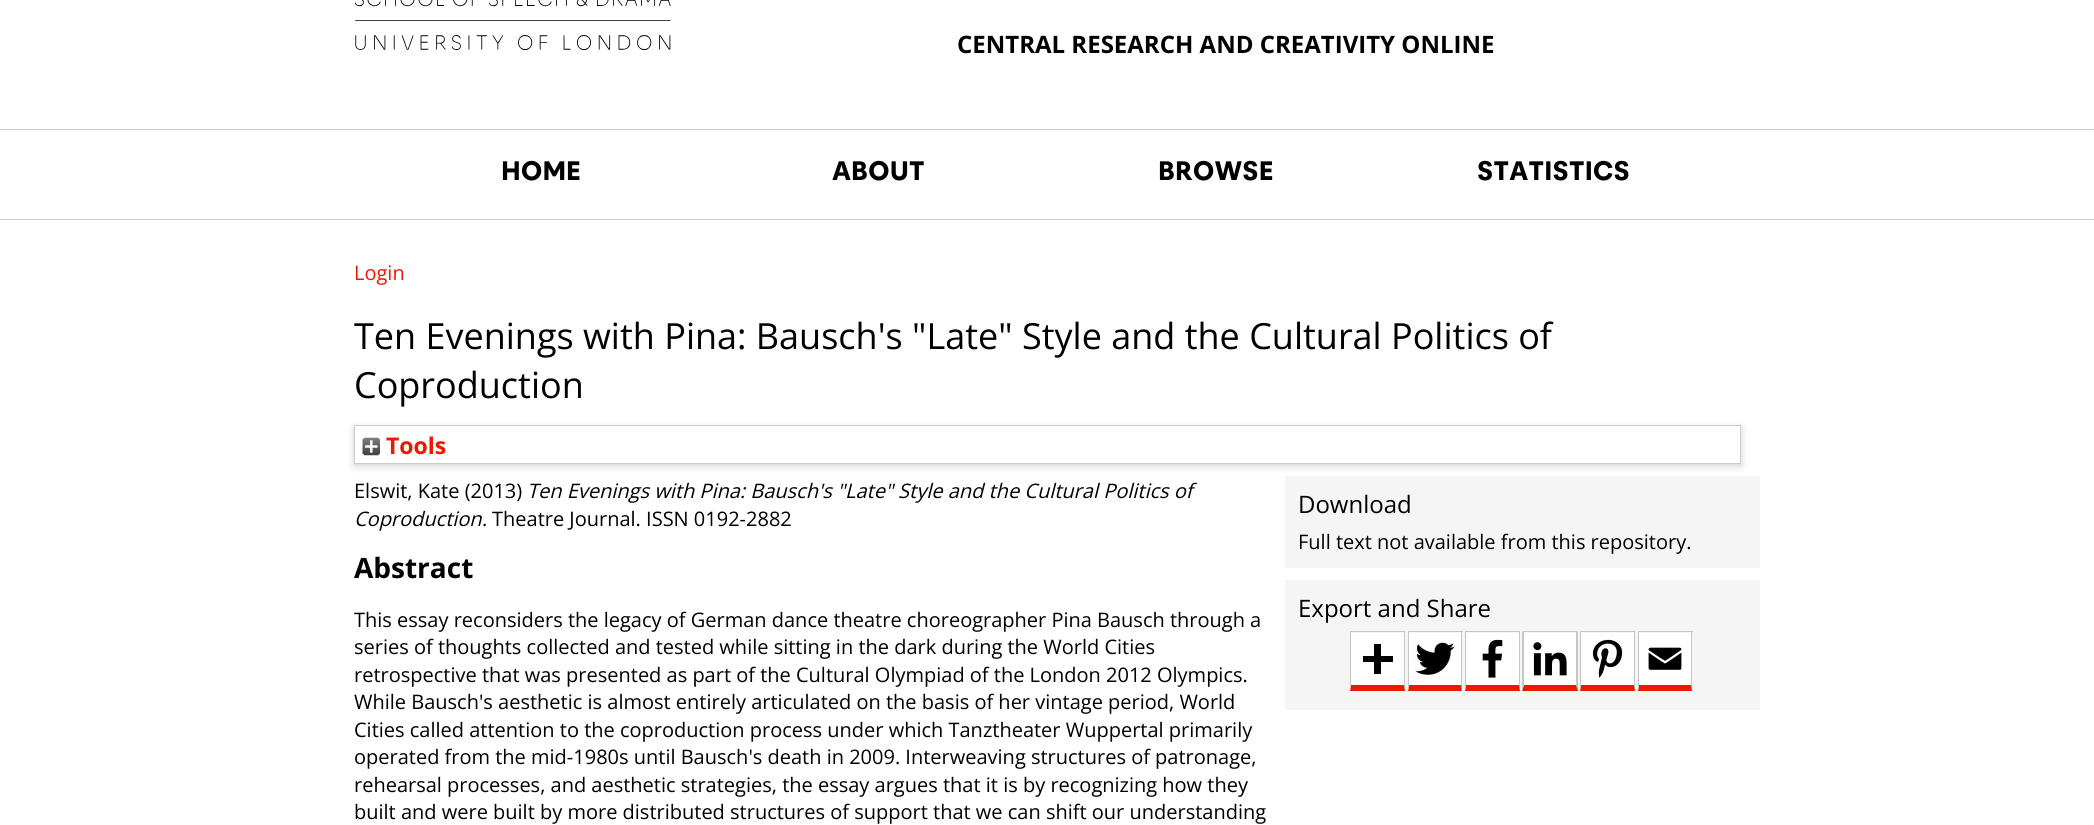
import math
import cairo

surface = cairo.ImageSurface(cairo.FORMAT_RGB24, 2094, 825)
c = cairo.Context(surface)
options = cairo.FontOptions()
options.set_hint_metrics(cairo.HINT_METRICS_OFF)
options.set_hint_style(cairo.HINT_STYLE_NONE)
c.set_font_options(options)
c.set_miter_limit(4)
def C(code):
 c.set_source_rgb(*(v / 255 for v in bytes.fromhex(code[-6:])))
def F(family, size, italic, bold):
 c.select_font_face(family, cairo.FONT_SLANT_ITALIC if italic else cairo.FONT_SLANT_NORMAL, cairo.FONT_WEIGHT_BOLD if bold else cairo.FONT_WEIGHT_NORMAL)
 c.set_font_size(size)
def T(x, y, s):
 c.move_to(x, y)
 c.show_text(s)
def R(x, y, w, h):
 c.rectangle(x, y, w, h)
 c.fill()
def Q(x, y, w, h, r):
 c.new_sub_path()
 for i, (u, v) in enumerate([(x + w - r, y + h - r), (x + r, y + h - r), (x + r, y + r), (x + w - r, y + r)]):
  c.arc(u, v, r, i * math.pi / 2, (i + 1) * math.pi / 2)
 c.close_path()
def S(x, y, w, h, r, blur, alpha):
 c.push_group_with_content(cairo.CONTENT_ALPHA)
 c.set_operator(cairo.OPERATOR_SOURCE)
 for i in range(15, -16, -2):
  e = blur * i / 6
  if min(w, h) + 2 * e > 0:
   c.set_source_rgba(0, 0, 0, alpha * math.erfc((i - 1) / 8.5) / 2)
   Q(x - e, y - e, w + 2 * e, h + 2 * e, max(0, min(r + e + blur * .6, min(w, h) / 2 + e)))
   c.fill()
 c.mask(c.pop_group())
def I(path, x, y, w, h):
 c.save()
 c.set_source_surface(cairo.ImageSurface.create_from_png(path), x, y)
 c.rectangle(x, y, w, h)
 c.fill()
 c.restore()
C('ffffff')
c.paint()
I('1.png',355,0,316,50)
F('Open Sans',24,0,1)
C('000000')
T(957,53,'CENTRAL RESEARCH AND CREATIVITY ONLINE')
C('cecece')
R(0,129,2094,1)
R(0,219,2094,1)
F('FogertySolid',28,0,0)
C('000000')
T(501,180,'HOME')
T(832,180,'ABOUT')
T(1158,180,'BROWSE')
T(1477,180,'STATISTICS')
F('Open Sans',20,0,0)
C('ea1900')
T(354,280,'Login')
F('Open Sans',36,0,0)
C('000000')
T(354,349,'Ten Evenings with Pina: Bausch\'s "Late" Style and the Cultural Politics of')
T(354,398,'Coproduction')
C('646464')
S(354,428,1387,38,0,4,.3)
C('ffffff')
c.rectangle(354.5,425.5,1386,38)
c.fill_preserve()
C('cccccc')
c.set_line_width(1)
c.stroke()
I('2.png',362,437,18,19)
F('Open Sans',23,0,1)
C('ea1900')
T(386,454,'Tools')
F('Open Sans',20,0,0)
C('000000')
T(354,498,'Elswit, Kate (2013)')
F('Open Sans',20,1,0)
T(527,498,'Ten Evenings with Pina: Bausch\'s "Late" Style and the Cultural Politics of')
T(354,526,'Coproduction.')
F('Open Sans',20,0,0)
T(492,526,'Theatre Journal. ISSN 0192-2882')
F('Open Sans',28,0,1)
T(354,578,'Abstract')
F('Open Sans',20,0,0)
T(354,627,'This essay reconsiders the legacy of German dance theatre choreographer Pina Bausch through a')
T(354,654,'series of thoughts collected and tested while sitting in the dark during the World Cities')
T(354,682,'retrospective that was presented as part of the Cultural Olympiad of the London 2012 Olympics.')
T(354,709,'While Bausch\'s aesthetic is almost entirely articulated on the basis of her vintage period, World')
T(354,737,'Cities called attention to the coproduction process under which Tanztheater Wuppertal primarily')
T(354,764,'operated from the mid-1980s until Bausch\'s death in 2009. Interweaving structures of patronage,')
T(354,792,'rehearsal processes, and aesthetic strategies, the essay argues that it is by recognizing how they')
T(354,819,'built and were built by more distributed structures of support that we can shift our understanding')
C('f5f5f5')
R(1285,476,475,92)
F('Open Sans',24,0,0)
C('000000')
T(1298,513,'Download')
F('Open Sans',20,0,0)
T(1298,549,'Full text not available from this repository.')
C('f5f5f5')
R(1285,580,475,130)
F('Open Sans',24,0,0)
C('000000')
T(1298,617,'Export and Share')
C('c6c6c6')
R(1350,631,55,1)
c.new_path()
c.move_to(1405,631)
c.line_to(1405,691)
c.line_to(1404,685)
c.line_to(1404,632)
c.close_path()
c.fill()
C('ea1900')
c.new_path()
c.move_to(1405,691)
c.line_to(1350,691)
c.line_to(1351,685)
c.line_to(1404,685)
c.close_path()
c.fill()
C('c6c6c6')
c.new_path()
c.move_to(1350,691)
c.line_to(1350,631)
c.line_to(1351,632)
c.line_to(1351,685)
c.close_path()
c.fill()
R(1408,631,55,1)
c.new_path()
c.move_to(1462,631)
c.line_to(1462,691)
c.line_to(1461,685)
c.line_to(1461,632)
c.close_path()
c.fill()
C('ea1900')
c.new_path()
c.move_to(1462,691)
c.line_to(1408,691)
c.line_to(1409,685)
c.line_to(1461,685)
c.close_path()
c.fill()
C('c6c6c6')
c.new_path()
c.move_to(1408,691)
c.line_to(1408,631)
c.line_to(1409,632)
c.line_to(1409,685)
c.close_path()
c.fill()
R(1465,631,55,1)
c.new_path()
c.move_to(1520,631)
c.line_to(1520,691)
c.line_to(1519,685)
c.line_to(1519,632)
c.close_path()
c.fill()
C('ea1900')
c.new_path()
c.move_to(1520,691)
c.line_to(1465,691)
c.line_to(1466,685)
c.line_to(1519,685)
c.close_path()
c.fill()
C('c6c6c6')
c.new_path()
c.move_to(1465,691)
c.line_to(1465,631)
c.line_to(1466,632)
c.line_to(1466,685)
c.close_path()
c.fill()
R(1523,631,55,1)
c.new_path()
c.move_to(1578,631)
c.line_to(1578,691)
c.line_to(1576,685)
c.line_to(1576,632)
c.close_path()
c.fill()
C('ea1900')
c.new_path()
c.move_to(1578,691)
c.line_to(1522,691)
c.line_to(1524,685)
c.line_to(1576,685)
c.close_path()
c.fill()
C('c6c6c6')
c.new_path()
c.move_to(1522,691)
c.line_to(1522,631)
c.line_to(1524,632)
c.line_to(1524,685)
c.close_path()
c.fill()
R(1580,631,55,1)
c.new_path()
c.move_to(1635,631)
c.line_to(1635,691)
c.line_to(1634,685)
c.line_to(1634,632)
c.close_path()
c.fill()
C('ea1900')
c.new_path()
c.move_to(1635,691)
c.line_to(1580,691)
c.line_to(1581,685)
c.line_to(1634,685)
c.close_path()
c.fill()
C('c6c6c6')
c.new_path()
c.move_to(1580,691)
c.line_to(1580,631)
c.line_to(1581,632)
c.line_to(1581,685)
c.close_path()
c.fill()
R(1638,631,55,1)
C('ffffff')
R(1351,633,53,52)
R(1409,633,52,52)
R(1466,633,53,52)
R(1524,633,52,52)
R(1581,633,53,52)
C('c6c6c6')
c.new_path()
c.move_to(1692,631)
c.line_to(1692,691)
c.line_to(1691,685)
c.line_to(1691,632)
c.close_path()
c.fill()
C('ea1900')
c.new_path()
c.move_to(1692,691)
c.line_to(1638,691)
c.line_to(1639,685)
c.line_to(1691,685)
c.close_path()
c.fill()
C('c6c6c6')
c.new_path()
c.move_to(1638,691)
c.line_to(1638,631)
c.line_to(1639,632)
c.line_to(1639,685)
c.close_path()
c.fill()
C('ffffff')
R(1639,633,52,52)
C('000000')
R(1374,644,7,30)
I('3.png',1415,642,40,33)
I('4.png',1482,639,21,39)
I('5.png',1533,642,34,34)
I('6.png',1592,639,31,39)
I('7.png',1648,647,34,23)
R(1363,656,30,6)
surface.write_to_png('o.png')
